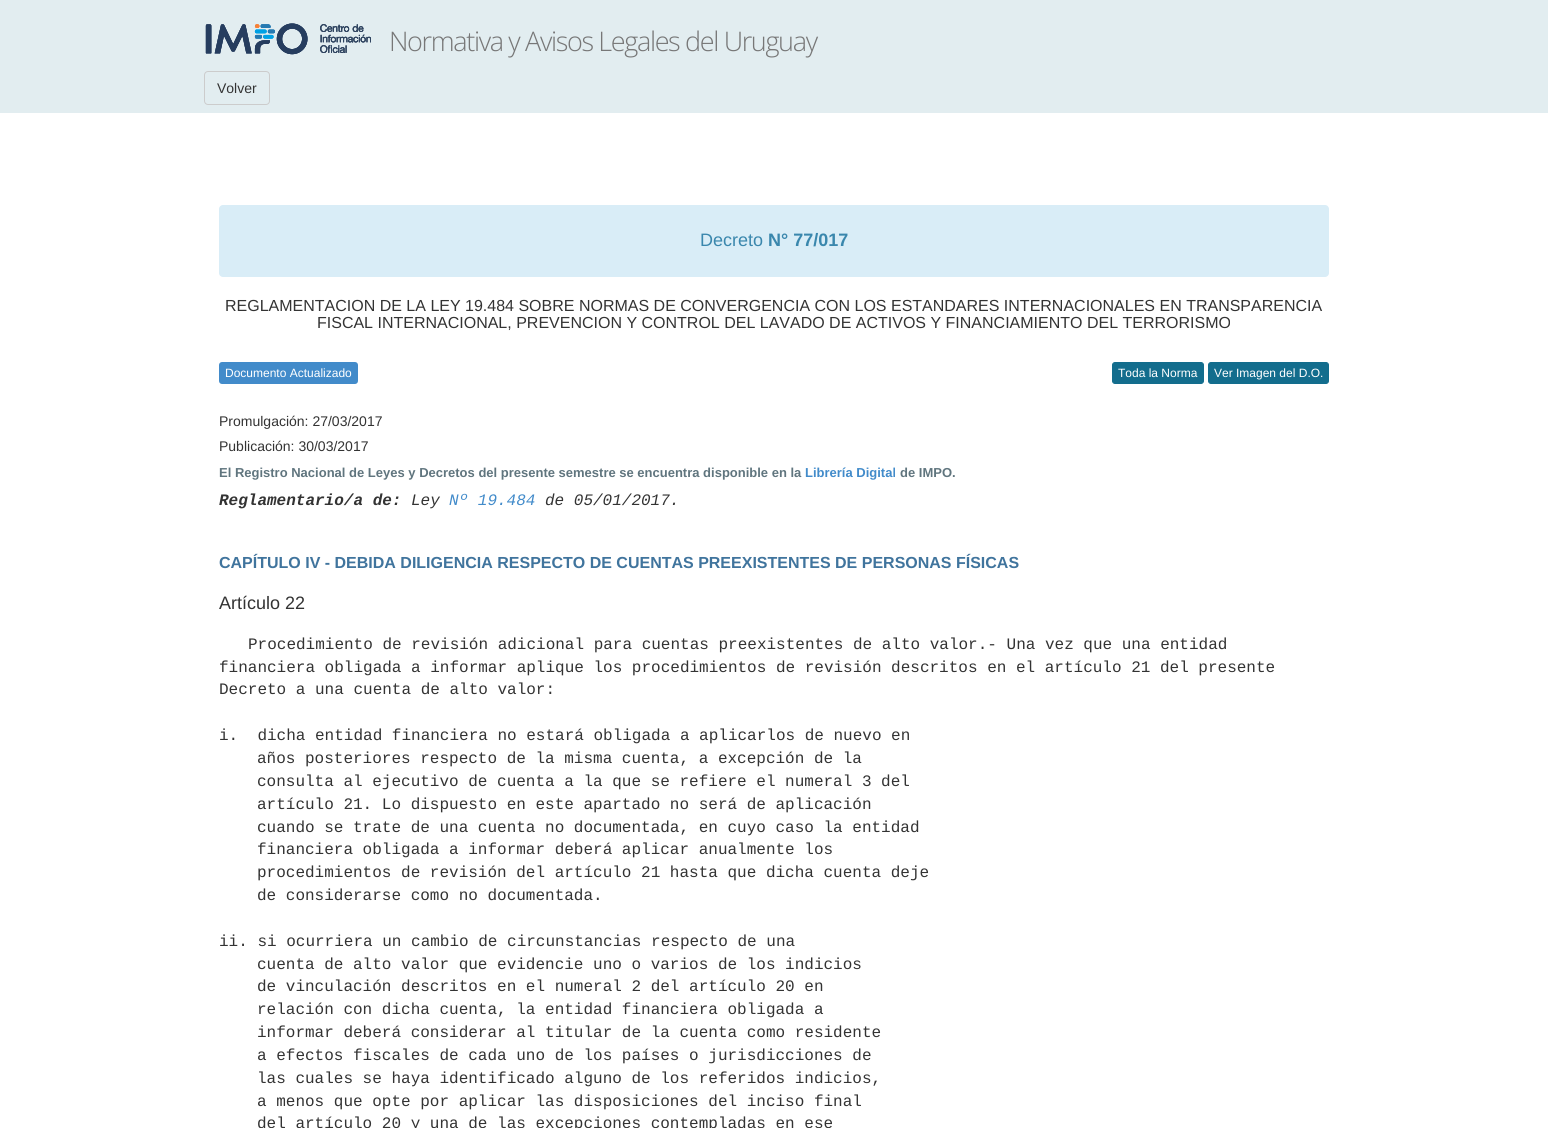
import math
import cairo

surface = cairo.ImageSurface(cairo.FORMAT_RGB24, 1548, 1128)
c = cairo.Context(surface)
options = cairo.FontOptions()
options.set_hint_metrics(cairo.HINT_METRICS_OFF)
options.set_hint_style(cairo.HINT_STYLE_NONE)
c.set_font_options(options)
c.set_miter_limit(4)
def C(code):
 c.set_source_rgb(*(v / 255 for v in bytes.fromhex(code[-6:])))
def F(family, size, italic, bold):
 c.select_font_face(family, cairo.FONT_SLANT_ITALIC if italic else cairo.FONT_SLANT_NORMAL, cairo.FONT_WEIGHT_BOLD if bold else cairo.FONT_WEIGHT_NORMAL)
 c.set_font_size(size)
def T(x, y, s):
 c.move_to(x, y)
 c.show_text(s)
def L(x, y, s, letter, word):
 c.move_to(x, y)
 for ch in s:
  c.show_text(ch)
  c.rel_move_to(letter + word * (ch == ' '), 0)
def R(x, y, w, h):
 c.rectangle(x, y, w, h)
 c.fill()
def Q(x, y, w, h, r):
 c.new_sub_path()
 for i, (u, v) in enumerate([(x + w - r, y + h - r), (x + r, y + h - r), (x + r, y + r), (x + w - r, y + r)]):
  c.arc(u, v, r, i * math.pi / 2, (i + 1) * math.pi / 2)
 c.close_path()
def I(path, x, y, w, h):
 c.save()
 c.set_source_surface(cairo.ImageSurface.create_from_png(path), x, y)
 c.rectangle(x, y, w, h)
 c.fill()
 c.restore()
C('ffffff')
c.paint()
C('e2edf0')
R(0,0,1548,113)
I('1.png',205,23,166,32)
I('2.png',205,23,166,32)
F('Open Sans Light',27,0,0)
C('777777')
L(389,51,'Normativa y Avisos Legales del Uruguay',-1.35,0)
Q(204.5,71.5,65,33,3.5)
C('cccccc')
c.set_line_width(1)
c.stroke()
F('Liberation Sans',14,0,0)
C('333333')
T(217,93,'Volver')
C('d9edf7')
Q(219,205,1110,72,4)
c.fill()
F('Liberation Sans',18,0,0)
C('3a87ad')
T(700,246,'Decreto')
F('Liberation Sans',18,0,1)
T(768,246,'N° 77/017')
F('Liberation Sans',16,0,0)
C('333333')
T(225,311,'REGLAMENTACION DE LA LEY 19.484 SOBRE NORMAS DE CONVERGENCIA CON LOS ESTANDARES INTERNACIONALES EN TRANSPARENCIA')
T(317,328,'FISCAL INTERNACIONAL, PREVENCION Y CONTROL DEL LAVADO DE ACTIVOS Y FINANCIAMIENTO DEL TERRORISMO')
C('428bca')
Q(219,362,139,22,3)
c.fill()
F('Liberation Sans',12,0,0)
C('ffffff')
T(225,377,'Documento Actualizado')
C('136d8d')
Q(1112.5,362.5,91,21,2.5)
c.fill_preserve()
c.stroke()
C('ffffff')
T(1118,377,'Toda la Norma')
C('136d8d')
Q(1208.5,362.5,120,21,2.5)
c.fill_preserve()
c.stroke()
C('ffffff')
T(1214,377,'Ver Imagen del D.O.')
F('Liberation Sans',14,0,0)
C('333333')
T(219,426,'Promulgación: 27/03/2017')
T(219,451,'Publicación: 30/03/2017')
F('Liberation Sans',13,0,1)
C('60757e')
T(219,477,'El Registro Nacional de Leyes y Decretos del presente semestre se encuentra disponible en la')
C('428bca')
T(805,477,'Librería Digital')
C('60757e')
T(900,477,'de IMPO.')
F('Liberation Mono',16,1,1)
C('333333')
T(219,505,'Reglamentario/a de:')
F('Liberation Mono',16,1,0)
T(411,505,'Ley')
C('428bca')
T(449,505,'Nº 19.484')
C('333333')
T(545,505,'de 05/01/2017.')
F('Liberation Sans',16,0,1)
C('40749d')
T(219,568,'CAPÍTULO IV - DEBIDA DILIGENCIA RESPECTO DE CUENTAS PREEXISTENTES DE PERSONAS FÍSICAS')
F('Liberation Sans',18,0,0)
C('333333')
T(219,609,'Artículo 22')
F('Liberation Mono',16,0,0)
T(248,649,'Procedimiento de revisión adicional para cuentas preexistentes de alto valor.- Una vez que una entidad')
T(219,672,'financiera obligada a informar aplique los procedimientos de revisión descritos en el artículo 21 del presente')
T(219,694,'Decreto a una cuenta de alto valor:')
T(219,740,'i.  dicha entidad financiera no estará obligada a aplicarlos de nuevo en')
T(257,763,'años posteriores respecto de la misma cuenta, a excepción de la')
T(257,786,'consulta al ejecutivo de cuenta a la que se refiere el numeral 3 del')
T(257,809,'artículo 21. Lo dispuesto en este apartado no será de aplicación')
T(257,832,'cuando se trate de una cuenta no documentada, en cuyo caso la entidad')
T(257,854,'financiera obligada a informar deberá aplicar anualmente los')
T(257,877,'procedimientos de revisión del artículo 21 hasta que dicha cuenta deje')
T(257,900,'de considerarse como no documentada.')
T(219,946,'ii. si ocurriera un cambio de circunstancias respecto de una')
T(257,969,'cuenta de alto valor que evidencie uno o varios de los indicios')
T(257,991,'de vinculación descritos en el numeral 2 del artículo 20 en')
T(257,1014,'relación con dicha cuenta, la entidad financiera obligada a')
T(257,1037,'informar deberá considerar al titular de la cuenta como residente')
T(257,1060,'a efectos fiscales de cada uno de los países o jurisdicciones de')
T(257,1083,'las cuales se haya identificado alguno de los referidos indicios,')
T(257,1106,'a menos que opte por aplicar las disposiciones del inciso final')
T(257,1128,'del artículo 20 y una de las excepciones contempladas en ese')
surface.write_to_png('o.png')
